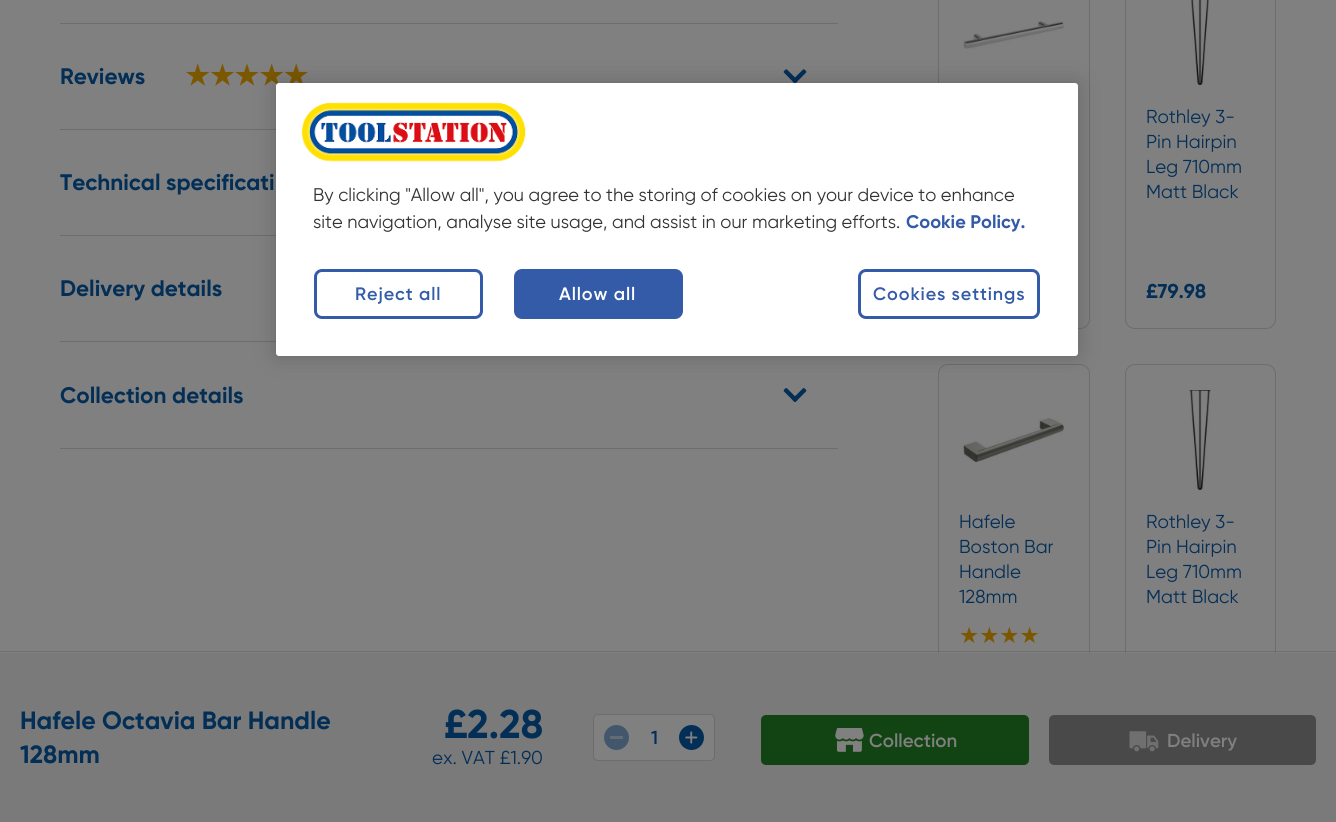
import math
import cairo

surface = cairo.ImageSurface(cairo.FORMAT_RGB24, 1336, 822)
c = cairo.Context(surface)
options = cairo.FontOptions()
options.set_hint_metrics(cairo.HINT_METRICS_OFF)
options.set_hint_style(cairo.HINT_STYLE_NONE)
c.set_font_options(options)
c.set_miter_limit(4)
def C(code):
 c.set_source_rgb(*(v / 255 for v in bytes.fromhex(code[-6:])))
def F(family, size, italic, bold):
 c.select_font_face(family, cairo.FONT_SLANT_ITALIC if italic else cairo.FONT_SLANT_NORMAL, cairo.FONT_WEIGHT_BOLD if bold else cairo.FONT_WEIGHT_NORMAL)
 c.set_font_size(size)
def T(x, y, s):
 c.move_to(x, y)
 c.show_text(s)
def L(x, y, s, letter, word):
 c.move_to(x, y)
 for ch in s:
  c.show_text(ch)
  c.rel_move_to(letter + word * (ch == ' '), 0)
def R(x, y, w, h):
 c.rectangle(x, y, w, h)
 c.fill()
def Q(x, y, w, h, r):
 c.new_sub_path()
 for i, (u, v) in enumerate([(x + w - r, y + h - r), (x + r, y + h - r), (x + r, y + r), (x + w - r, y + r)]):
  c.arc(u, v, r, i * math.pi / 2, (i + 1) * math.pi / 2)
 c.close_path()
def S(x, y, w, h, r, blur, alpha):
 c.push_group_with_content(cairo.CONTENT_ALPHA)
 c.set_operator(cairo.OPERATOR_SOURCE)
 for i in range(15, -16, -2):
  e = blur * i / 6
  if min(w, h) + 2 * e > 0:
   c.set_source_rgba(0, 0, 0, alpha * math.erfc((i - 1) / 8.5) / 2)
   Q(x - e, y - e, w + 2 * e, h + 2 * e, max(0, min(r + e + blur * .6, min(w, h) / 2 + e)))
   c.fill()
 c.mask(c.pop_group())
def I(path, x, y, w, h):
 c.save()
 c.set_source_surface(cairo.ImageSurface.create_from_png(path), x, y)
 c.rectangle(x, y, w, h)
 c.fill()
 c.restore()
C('808080')
c.paint()
C('6d6d6d')
R(60,23,778,1)
R(60,129,216,1)
F('Gilroy',22.5,0,1)
C('032e56')
T(60,84,'Reviews')
F('DejaVu Sans',27.5,0,1)
C('7b5700')
T(185,85,'★★★★★')
I('1.png',783,69,24,14)
C('6d6d6d')
R(60,235,216,1)
F('Gilroy',22.5,0,1)
C('032e56')
T(60,190,'Technical specificati')
C('6d6d6d')
R(60,341,216,1)
C('032e56')
T(60,296,'Delivery details')
C('6d6d6d')
R(60,448,778,1)
C('032e56')
T(60,403,'Collection details')
I('2.png',783,388,24,14)
Q(938.5,-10.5,151,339,9.5)
C('6d6d6d')
c.set_line_width(1)
c.stroke()
I('3.png',963,21,101,28)
Q(1125.5,-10.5,150,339,9.5)
c.stroke()
I('4.png',1190,0,19,85)
F('Gilroy',18.75,0,0)
C('032e56')
T(1146,123,'Rothley 3-')
T(1146,148,'Pin Hairpin')
T(1146,173,'Leg 710mm')
T(1146,198,'Matt Black')
F('Gilroy',20,0,1)
T(1146,298,'£79.98')
Q(938.5,364.5,151,344,9.5)
C('6d6d6d')
c.stroke()
I('5.png',963,418,101,44)
F('Gilroy',18.75,0,0)
C('032e56')
T(959,528,'Hafele')
T(959,553,'Boston Bar')
T(959,578,'Handle')
T(959,603,'128mm')
F('DejaVu Sans',22.5,0,0)
C('7b5700')
T(959,643,'★★★★')
Q(1125.5,364.5,150,344,9.5)
C('6d6d6d')
c.stroke()
I('6.png',1189,390,22,100)
F('Gilroy',18.75,0,0)
C('032e56')
T(1146,528,'Rothley 3-')
T(1146,553,'Pin Hairpin')
T(1146,578,'Leg 710mm')
T(1146,603,'Matt Black')
C('7a7a7a')
R(0,653,1336,169)
C('6d6d6d')
R(0,651,1336,1)
F('Gilroy',25,0,1)
C('032e56')
T(20,729,'Hafele Octavia Bar Handle')
T(20,763,'128mm')
F('Gilroy',40,0,1)
T(444,738,'£2.28')
F('Gilroy',18.75,0,0)
T(432,764,'ex. VAT £1.90')
C('808080')
Q(593.5,714.5,121,46,4.5)
c.fill_preserve()
C('6d6d6d')
c.stroke()
C('42576b')
c.arc(616.5,737.5,12.5,0,2 * math.pi)
c.fill()
C('616c75')
R(610,736,13,3)
F('Gilroy SemiBold',18.75,0,0)
C('032e56')
T(651,744,'1')
c.new_path()
c.arc(691.5,737.5,12.5,0,2 * math.pi)
c.fill()
I('7.png',685,731,13,13)
C('124413')
Q(761,715,268,50,5)
c.fill()
I('8.png',835,728,29,24)
C('808080')
T(869,747,'Collection')
C('494949')
Q(1050.5,716.5,264,47,3.5)
c.fill_preserve()
c.set_line_width(3)
c.stroke()
I('9.png',1129,731,30,21)
C('808080')
T(1167,747,'Delivery')
C('000000')
S(276,83,802,273,3,11,.2)
C('ffffff')
Q(276,83,802,273,3)
c.fill()
I('10.png',301,102,225,60)
F('Gilroy',18.3,0,0)
C('333333')
T(313,201,'By clicking "Allow all", you agree to the storing of cookies on your device to enhance')
T(313,228,'site navigation, analyse site usage, and assist in our marketing efforts.')
F('Gilroy',18.3,0,1)
C('345ba8')
T(906,228,'Cookie Policy.')
Q(315.5,270.5,166,47,6.5)
c.stroke()
F('Gilroy SemiBold',18,0,0)
L(355,300,'Reject all',.9,0)
Q(515.5,270.5,166,47,6.5)
c.fill_preserve()
c.stroke()
C('ffffff')
L(559,300,'Allow all',.9,0)
Q(859.5,270.5,179,47,6.5)
C('345ba8')
c.stroke()
L(873,300,'Cookies settings',.9,0)
surface.write_to_png('o.png')
